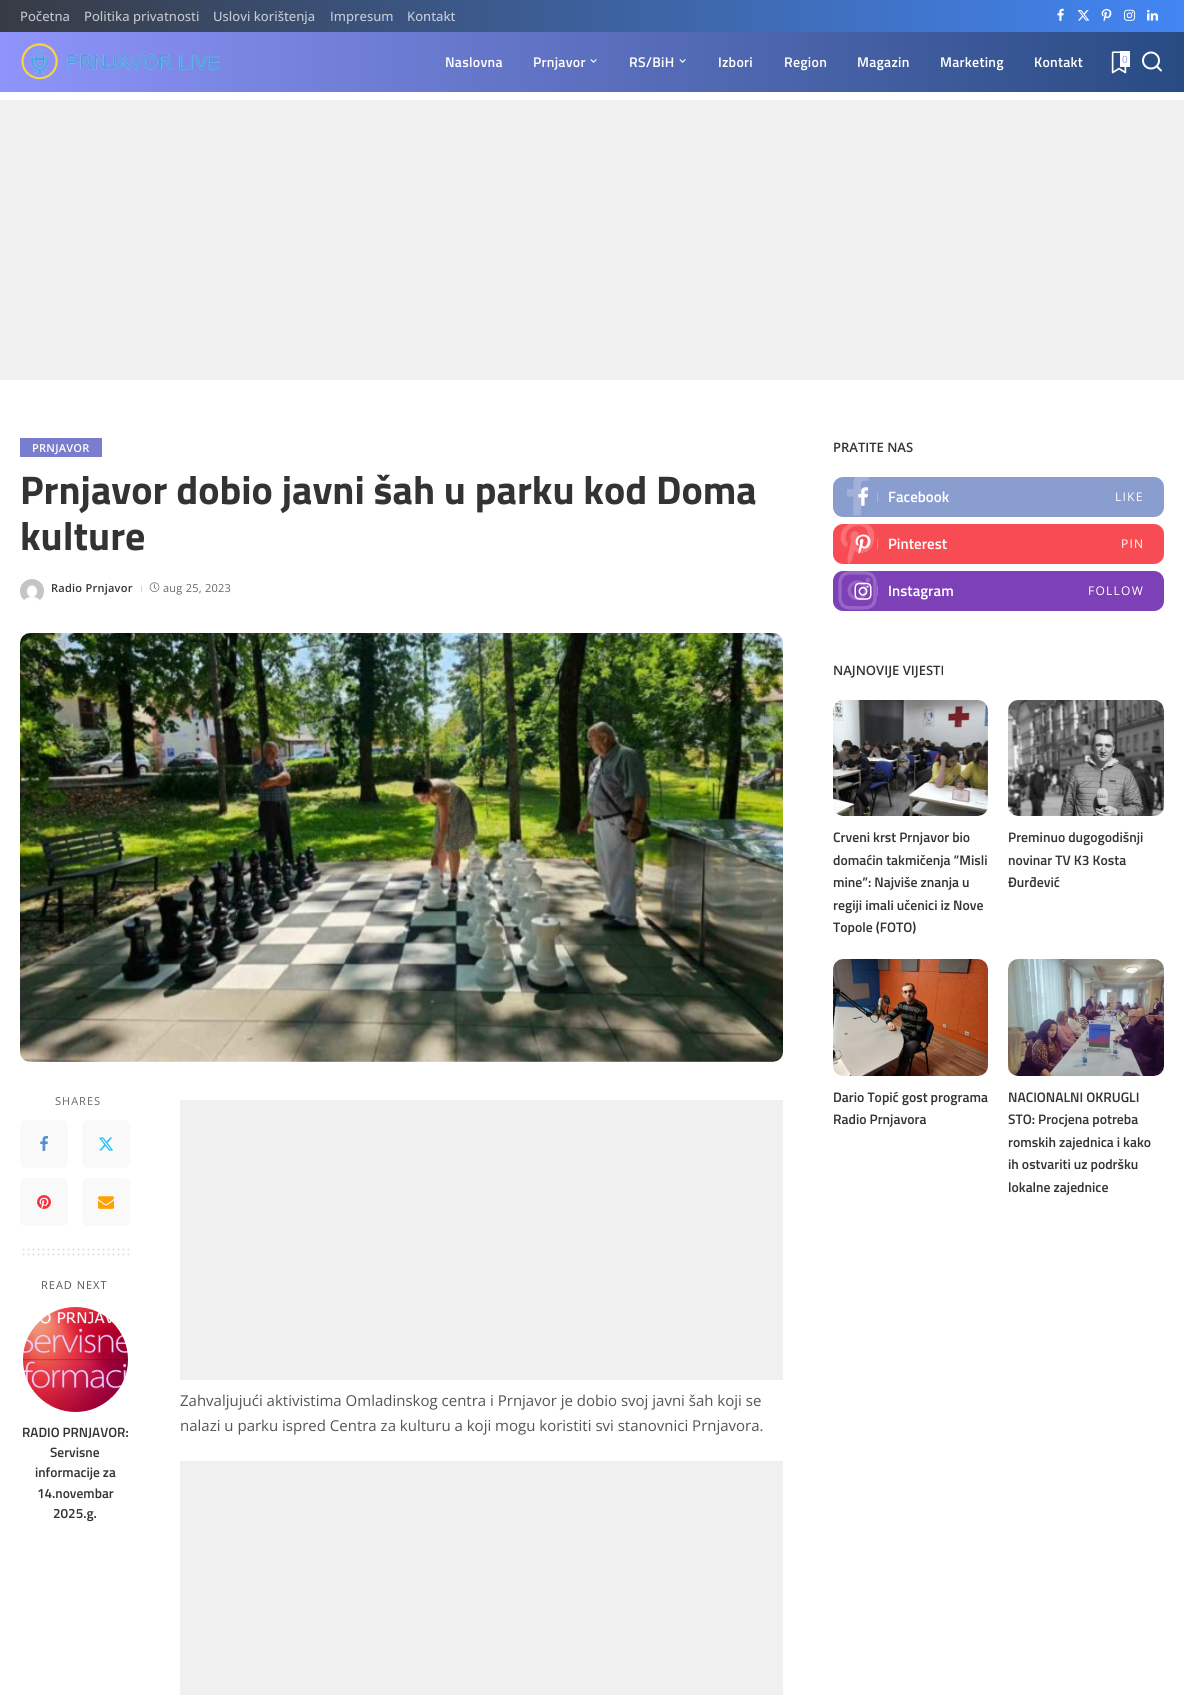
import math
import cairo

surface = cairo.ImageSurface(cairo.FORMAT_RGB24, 1184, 1695)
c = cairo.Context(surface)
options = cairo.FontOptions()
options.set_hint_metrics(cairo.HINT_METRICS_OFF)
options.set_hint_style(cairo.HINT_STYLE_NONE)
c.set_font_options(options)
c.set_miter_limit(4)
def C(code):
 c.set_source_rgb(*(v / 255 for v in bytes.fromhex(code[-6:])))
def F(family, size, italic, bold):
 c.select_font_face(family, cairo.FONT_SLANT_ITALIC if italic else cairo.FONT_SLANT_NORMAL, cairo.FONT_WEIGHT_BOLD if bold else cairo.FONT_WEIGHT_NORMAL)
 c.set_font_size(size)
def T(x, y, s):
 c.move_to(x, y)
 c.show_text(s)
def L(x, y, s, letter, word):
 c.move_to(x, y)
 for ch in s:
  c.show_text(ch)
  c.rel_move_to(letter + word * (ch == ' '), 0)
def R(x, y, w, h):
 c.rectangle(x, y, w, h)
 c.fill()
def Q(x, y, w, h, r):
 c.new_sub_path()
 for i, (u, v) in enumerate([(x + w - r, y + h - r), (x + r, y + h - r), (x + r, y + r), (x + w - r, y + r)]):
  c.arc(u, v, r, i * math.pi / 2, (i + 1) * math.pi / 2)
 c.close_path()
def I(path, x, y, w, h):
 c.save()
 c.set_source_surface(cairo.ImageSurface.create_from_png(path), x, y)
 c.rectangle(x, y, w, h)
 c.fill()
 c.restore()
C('ffffff')
c.paint()
gradient = cairo.LinearGradient(0,16,1184,16)
gradient.add_color_stop_rgba(0,0.216,0.231,0.267,1)
gradient.add_color_stop_rgba(1,0.259,0.525,0.957,1)
c.set_source(gradient)
R(0,0,1184,32)
F('Open Sans Medium',13,0,0)
C('c3c5c9')
T(20,21,'Početna')
T(84,21,'Politika privatnosti')
C('c4c9d3')
T(213,21,'Uslovi korištenja')
T(330,21,'Impresum')
C('c4ccda')
T(407,21,'Kontakt')
I('1.png',1057,8,7,13)
I('2.png',1077,10,13,11)
I('3.png',1101,9,11,13)
I('4.png',1123,9,13,12)
I('5.png',1147,9,12,12)
gradient = cairo.LinearGradient(0,62,1184,62)
gradient.add_color_stop_rgba(0,0.561,0.58,0.984,1)
gradient.add_color_stop_rgba(1,0.157,0.294,0.51,1)
c.set_source(gradient)
R(0,32,1184,60)
I('6.png',21,43,199,37)
F('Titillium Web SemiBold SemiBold',14,0,0)
C('ffffff')
L(445,67,'Naslovna',.25,0)
L(533,67,'Prnjavor',.25,0)
I('7.png',590,59,7,4)
L(629,67,'RS/BiH',.25,0)
I('8.png',679,59,7,4)
L(718,67,'Izbori',.25,0)
L(784,67,'Region',.25,0)
L(857,67,'Magazin',.25,0)
L(940,67,'Marketing',.25,0)
L(1034,67,'Kontakt',.25,0)
I('9.png',1111,51,16,23)
R(1120,51,10,16)
F('Open Sans',10,0,0)
C('8f94fb')
T(1122,63,'0')
I('10.png',1142,51,20,21)
C('f0f0f0')
R(0,100,1184,280)
C('7a7dce')
R(20,438,82,19)
F('Open Sans SemiBold',11,0,0)
C('ffffff')
L(32,452,'PRNJAVOR',.25,0)
F('Titillium Web',40,0,1)
C('333333')
T(20,504,'Prnjavor dobio javni šah u parku kod Doma')
T(20,550,'kulture')
I('11.png',20,579,24,22)
F('Open Sans SemiBold',11,0,0)
L(51,592,'Radio Prnjavor',.25,0)
C('d1d1d1')
R(141,586,1,6)
I('12.png',149,582,11,10)
F('Open Sans',11,0,0)
C('666666')
L(163,592,'aug 25, 2023',.25,0)
I('13.png',20,633,763,429)
L(55,1105,'SHARES',1,0)
C('f9f9f9')
Q(20,1120,48,48,6)
c.fill()
I('14.png',40,1136,8,15)
Q(82,1120,48,48,6)
c.fill()
I('15.png',99,1137,15,14)
Q(20,1178,48,48,6)
c.fill()
I('16.png',37,1195,14,14)
Q(82,1178,48,48,6)
c.fill()
I('17.png',98,1196,16,13)
c.new_path()
c.move_to(23.5,1249.5)
c.line_to(128.7,1249.5)
C('dddddd')
c.set_line_cap(cairo.LINE_CAP_ROUND)
c.set_dash([0,5])
c.stroke()
c.new_path()
c.move_to(23.5,1254.5)
c.line_to(128.7,1254.5)
c.stroke()
C('555555')
L(41,1289,'READ NEXT',1,0)
I('18.png',23,1307,105,105)
F('Titillium Web SemiBold SemiBold',13.5,0,0)
C('333333')
T(22,1437,'RADIO PRNJAVOR:')
T(50,1457,'Servisne')
T(35,1477,'informacije za')
T(37,1498,'14.novembar')
T(53,1518,'2025.g.')
C('f0f0f0')
R(180,1100,603,280)
F('Open Sans',15,0,0)
C('555555')
T(180,1406,'Zahvaljujući aktivistima Omladinskog centra i Prnjavor je dobio svoj javni šah koji se')
T(180,1431,'nalazi u parku ispred Centra za kulturu a koji mogu koristiti svi stanovnici Prnjavora.')
C('f0f0f0')
R(180,1461,603,234)
F('Open Sans SemiBold',13,0,0)
C('333333')
T(833,452,'PRATITE NAS')
C('899dce')
Q(833,477,331,40,10)
c.fill()
I('19.png',847,477,22,39)
I('20.png',858,487,10,19)
C('a7b6da')
R(877,492,1,10)
F('Titillium Web SemiBold SemiBold',15,0,0)
C('ffffff')
T(888,502,'Facebook')
F('Open Sans',12,0,0)
L(1115,501,'LIKE',1.25,0)
C('f74c53')
Q(833,524,331,40,10)
c.fill()
I('21.png',840,524,35,40)
I('22.png',855,534,16,20)
C('f9797e')
R(877,539,1,10)
F('Titillium Web SemiBold SemiBold',15,0,0)
C('ffffff')
T(888,549,'Pinterest')
F('Open Sans',12,0,0)
L(1121,548,'PIN',1.25,0)
C('7e40b6')
Q(833,571,331,40,10)
c.fill()
I('23.png',838,571,39,39)
I('24.png',854,582,18,18)
C('9e70c8')
R(877,586,1,10)
F('Titillium Web SemiBold SemiBold',15,0,0)
C('ffffff')
T(888,596,'Instagram')
F('Open Sans',12,0,0)
L(1088,595,'FOLLOW',1.25,0)
F('Open Sans SemiBold',13,0,0)
C('333333')
T(833,675,'NAJNOVIJE VIJESTI')
I('25.png',833,700,155,116)
F('Titillium Web SemiBold SemiBold',13.75,0,0)
T(833,842,'Crveni krst Prnjavor bio')
T(833,865,'domaćin takmičenja ”Misli')
T(833,887,'mine”: Najviše znanja u')
T(833,910,'regiji imali učenici iz Nove')
T(833,932,'Topole (FOTO)')
I('26.png',1008,700,156,116)
T(1008,842,'Preminuo dugogodišnji')
T(1008,865,'novinar TV K3 Kosta')
T(1008,887,'Đurđević')
I('27.png',833,959,155,117)
T(833,1102,'Dario Topić gost programa')
T(833,1124,'Radio Prnjavora')
I('28.png',1008,959,156,117)
T(1008,1102,'NACIONALNI OKRUGLI')
T(1008,1124,'STO: Procjena potreba')
T(1008,1147,'romskih zajednica i kako')
T(1008,1169,'ih ostvariti uz podršku')
T(1008,1192,'lokalne zajednice')
surface.write_to_png('o.png')
